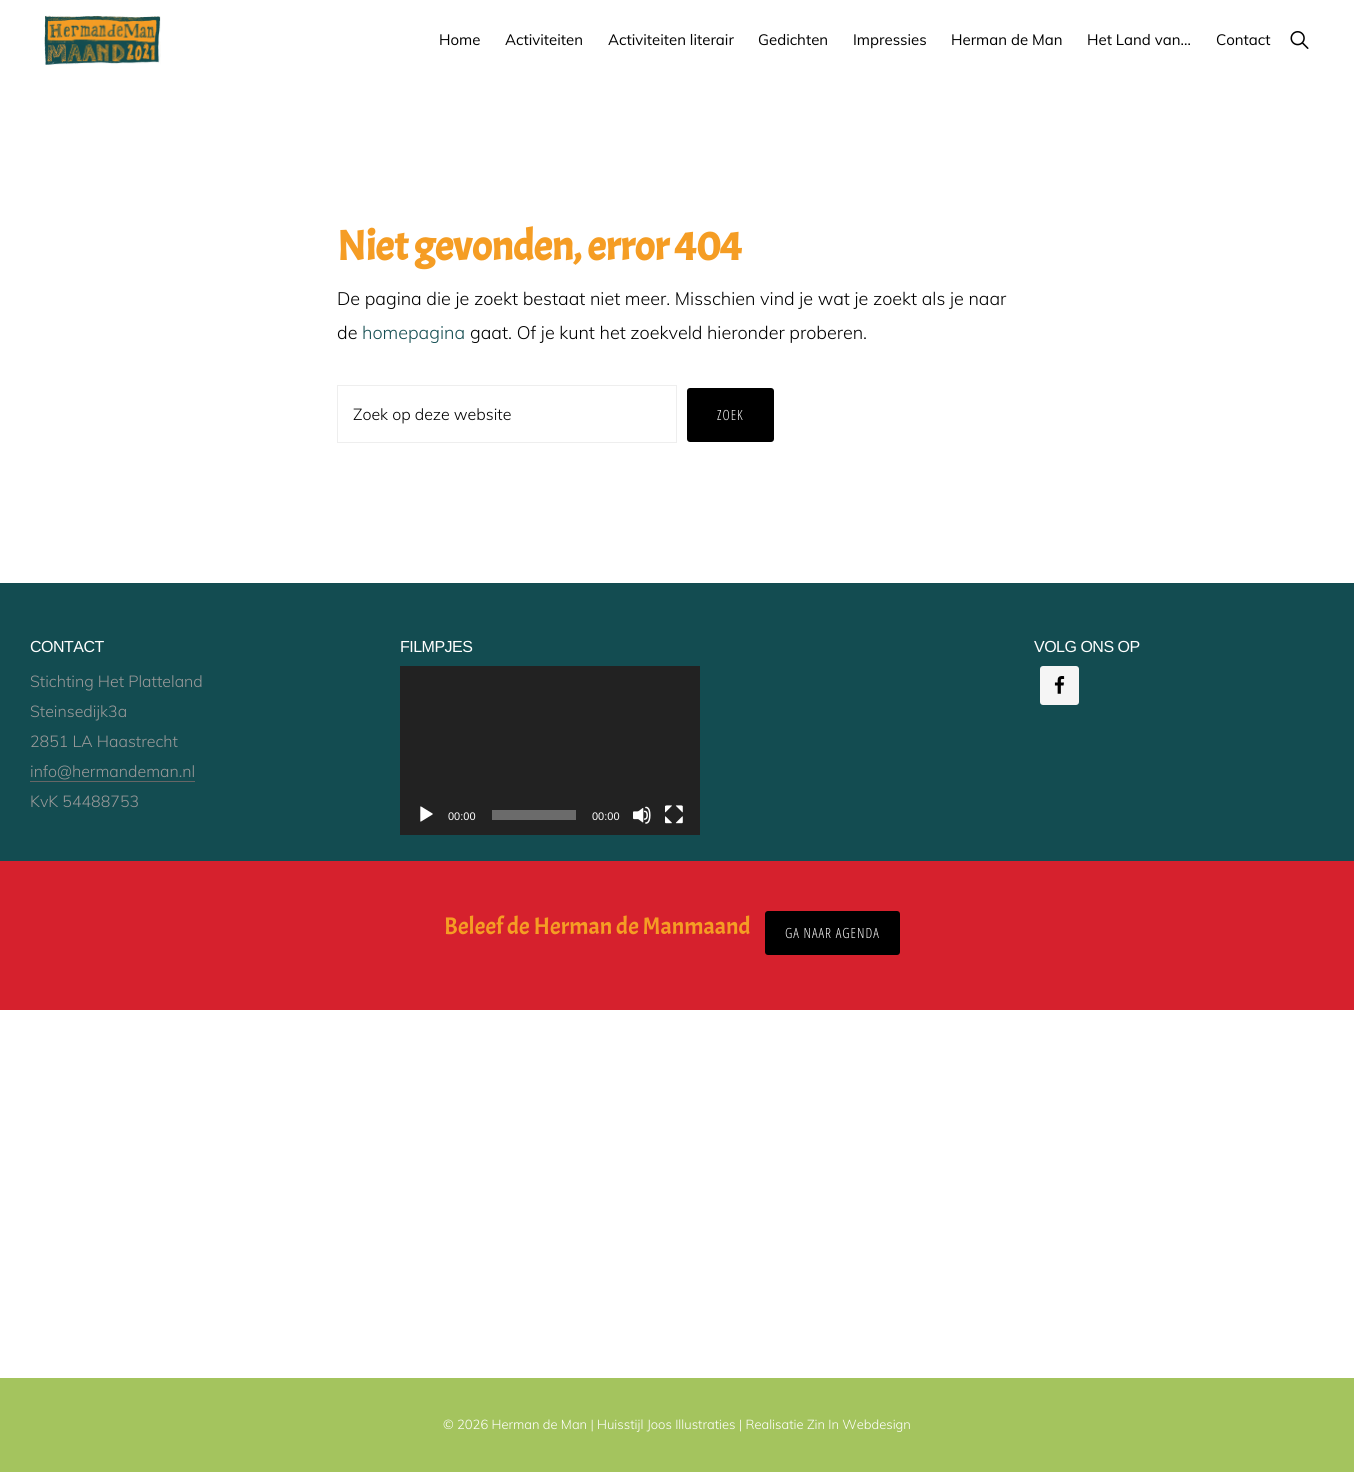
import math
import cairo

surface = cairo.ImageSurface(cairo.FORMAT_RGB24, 1354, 1472)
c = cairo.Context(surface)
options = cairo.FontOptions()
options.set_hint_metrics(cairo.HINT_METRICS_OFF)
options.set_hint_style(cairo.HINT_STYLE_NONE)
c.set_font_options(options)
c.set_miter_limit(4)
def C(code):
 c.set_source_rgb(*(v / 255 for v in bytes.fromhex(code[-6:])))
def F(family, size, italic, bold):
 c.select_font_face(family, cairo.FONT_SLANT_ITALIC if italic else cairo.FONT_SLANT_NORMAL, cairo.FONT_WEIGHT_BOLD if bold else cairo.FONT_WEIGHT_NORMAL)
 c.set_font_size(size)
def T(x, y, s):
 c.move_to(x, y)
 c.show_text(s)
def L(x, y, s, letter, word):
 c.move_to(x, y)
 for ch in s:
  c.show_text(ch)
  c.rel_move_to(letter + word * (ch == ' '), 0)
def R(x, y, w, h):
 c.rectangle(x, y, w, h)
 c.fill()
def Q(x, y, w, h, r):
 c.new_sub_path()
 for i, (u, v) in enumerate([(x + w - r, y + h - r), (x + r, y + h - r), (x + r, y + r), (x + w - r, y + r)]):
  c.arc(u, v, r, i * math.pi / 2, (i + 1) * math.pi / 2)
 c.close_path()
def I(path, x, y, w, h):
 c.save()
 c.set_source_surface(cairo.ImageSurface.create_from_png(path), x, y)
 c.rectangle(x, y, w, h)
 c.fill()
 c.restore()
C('ffffff')
c.paint()
I('1.png',44,15,117,50)
F('Muli',15,0,0)
C('000000')
T(439,45,'Home')
T(505,45,'Activiteiten')
T(608,45,'Activiteiten literair')
T(758,45,'Gedichten')
T(853,45,'Impressies')
T(951,45,'Herman de Man')
T(1087,45,'Het Land van…')
T(1216,45,'Contact')
I('2.png',1290,31,19,18)
F('Acme',42,0,1)
C('f59d24')
L(337,260,'Niet gevonden, error 404',-.5,0)
F('Muli Light',18,0,0)
C('000000')
T(337,305,'De pagina die je zoekt bestaat niet meer. Misschien vind je wat je zoekt als je naar')
T(337,339,'de')
C('134d51')
T(362,339,'homepagina')
C('000000')
T(470,339,'gaat. Of je kunt het zoekveld hieronder proberen.')
c.rectangle(337.5,385.5,339,57)
C('eeeeee')
c.set_line_width(1)
c.stroke()
F('Muli Light',16,0,0)
C('000000')
T(353,420,'Zoek op deze website')
Q(687,388,87,54,3)
c.fill()
F('Open Sans Condensed Light',14,0,0)
C('ffffff')
L(717,420,'ZOEK',1,0)
C('134c51')
R(0,583,1354,278)
F('Liberation Sans',16,0,0)
C('ffffff')
L(30,652,'CONTACT',-.5,0)
F('Muli Light',16,0,0)
C('999999')
T(30,687,'Stichting Het Platteland')
T(30,717,'Steinsedijk3a')
T(30,747,'2851 LA Haastrecht')
T(30,777,'info@hermandeman.nl')
C('666666')
R(30,781,165,1)
C('999999')
T(30,807,'KvK 54488753')
F('Liberation Sans',16,0,0)
C('ffffff')
L(400,652,'FILMPJES',-.5,0)
C('222222')
R(400,666,300,169)
I('3.png',420,806,13,16)
F('Liberation Sans',11,0,0)
C('ffffff')
T(448,820,'00:00')
C('6b6b6b')
R(492,810,84,10)
C('ffffff')
T(592,820,'00:00')
I('4.png',633,806,18,18)
I('5.png',665,805,18,19)
F('Liberation Sans',16,0,0)
L(1034,652,'VOLG ONS OP',-.5,0)
C('f5f5f5')
Q(1040,666,39,39,3)
c.fill()
I('6.png',1054,676,11,18)
C('d6212d')
R(0,861,1354,149)
F('Acme',24,0,0)
C('f59d24')
T(444,934,'Beleef de Herman de Manmaand')
C('000000')
Q(765,911,135,44,3)
c.fill()
F('Open Sans Condensed Light',14,0,0)
C('ffffff')
L(785,938,'GA NAAR AGENDA',1,0)
C('a4c45e')
R(0,1378,1354,94)
F('Muli Light',13,0,0)
C('ffffff')
T(443,1429,'© 2026 Herman de Man | Huisstijl Joos Illustraties | Realisatie Zin In Webdesign')
surface.write_to_png('o.png')
